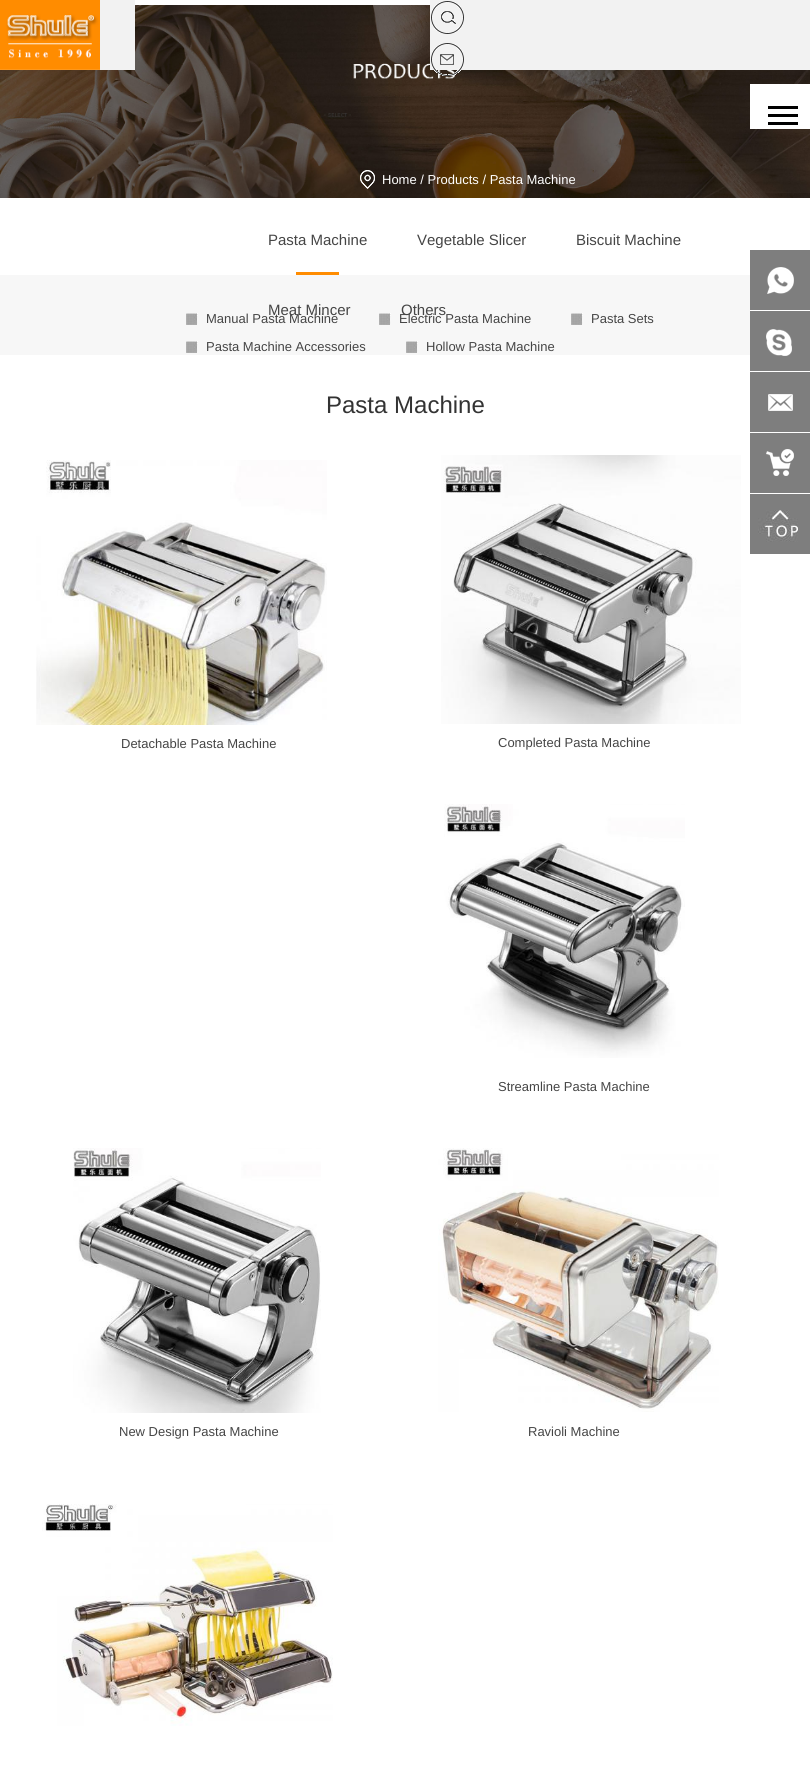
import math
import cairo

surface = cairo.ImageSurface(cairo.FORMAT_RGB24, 810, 1766)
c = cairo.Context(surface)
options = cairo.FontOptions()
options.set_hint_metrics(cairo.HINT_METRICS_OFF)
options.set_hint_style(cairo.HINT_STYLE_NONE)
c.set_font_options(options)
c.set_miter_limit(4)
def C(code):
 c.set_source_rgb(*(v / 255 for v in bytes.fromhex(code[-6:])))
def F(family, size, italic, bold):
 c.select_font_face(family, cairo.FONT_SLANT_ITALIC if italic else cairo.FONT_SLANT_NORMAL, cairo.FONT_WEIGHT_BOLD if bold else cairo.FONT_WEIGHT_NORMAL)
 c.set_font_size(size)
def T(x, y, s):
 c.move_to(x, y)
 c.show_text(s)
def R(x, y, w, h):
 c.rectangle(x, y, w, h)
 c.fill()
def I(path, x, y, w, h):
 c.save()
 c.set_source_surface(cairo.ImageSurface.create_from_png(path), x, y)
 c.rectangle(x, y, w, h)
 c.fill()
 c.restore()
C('ffffff')
c.paint()
I('4.png',0,5,810,193)
C('f2f2f2')
R(0,0,135,70)
I('1.png',0,0,100,70)
R(430,0,380,70)
I('2.png',431,1,33,33)
I('3.png',431,43,33,33)
C('ffffff')
R(750,84,60,45)
C('000000')
R(768,106,30,3)
R(768,114,30,3)
R(768,122,30,3)
I('5.png',360,170,15,19)
F('Liberation Sans',13,0,0)
C('ffffff')
T(382,184,'Home / Products / Pasta Machine')
C('f7f7f7')
R(0,275,750,80)
C('ff8c01')
R(296,272,43,3)
F('Liberation Sans',15,0,0)
C('454545')
T(268,245,'Pasta Machine')
T(417,245,'Vegetable Slicer')
T(576,245,'Biscuit Machine')
T(268,315,'Meat Mincer')
T(401,315,'Others')
I('6.png',186,313,12,12)
F('Liberation Sans',13,0,0)
T(206,323,'Manual Pasta Machine')
I('6.png',379,313,12,12)
T(399,323,'Electric Pasta Machine')
I('6.png',571,313,12,12)
T(591,323,'Pasta Sets')
I('6.png',186,341,12,12)
T(206,351,'Pasta Machine Accessories')
I('6.png',406,341,12,12)
T(426,351,'Hollow Pasta Machine')
C('7e7e7e')
R(750,250,60,60)
I('7.png',767,267,27,27)
R(750,311,60,60)
I('8.png',766,329,26,27)
R(750,372,60,60)
I('9.png',768,394,25,17)
R(750,433,60,60)
I('10.png',766,449,28,27)
I('11.png',750,494,60,60)
F('Liberation Sans',24,0,0)
C('333333')
T(326,413,'Pasta Machine')
I('12.png',36,460,291,265)
F('Liberation Sans',13,0,0)
C('454545')
T(121,748,'Detachable Pasta Machine')
I('13.png',441,455,300,269)
T(498,747,'Completed Pasta Machine')
I('14.png',444,804,241,254)
T(498,1091,'Streamline Pasta Machine')
I('15.png',73,1148,248,265)
T(119,1436,'New Design Pasta Machine')
I('16.png',438,1148,281,264)
T(528,1436,'Ravioli Machine')
I('17.png',42,1504,291,222)
surface.write_to_png('o.png')
